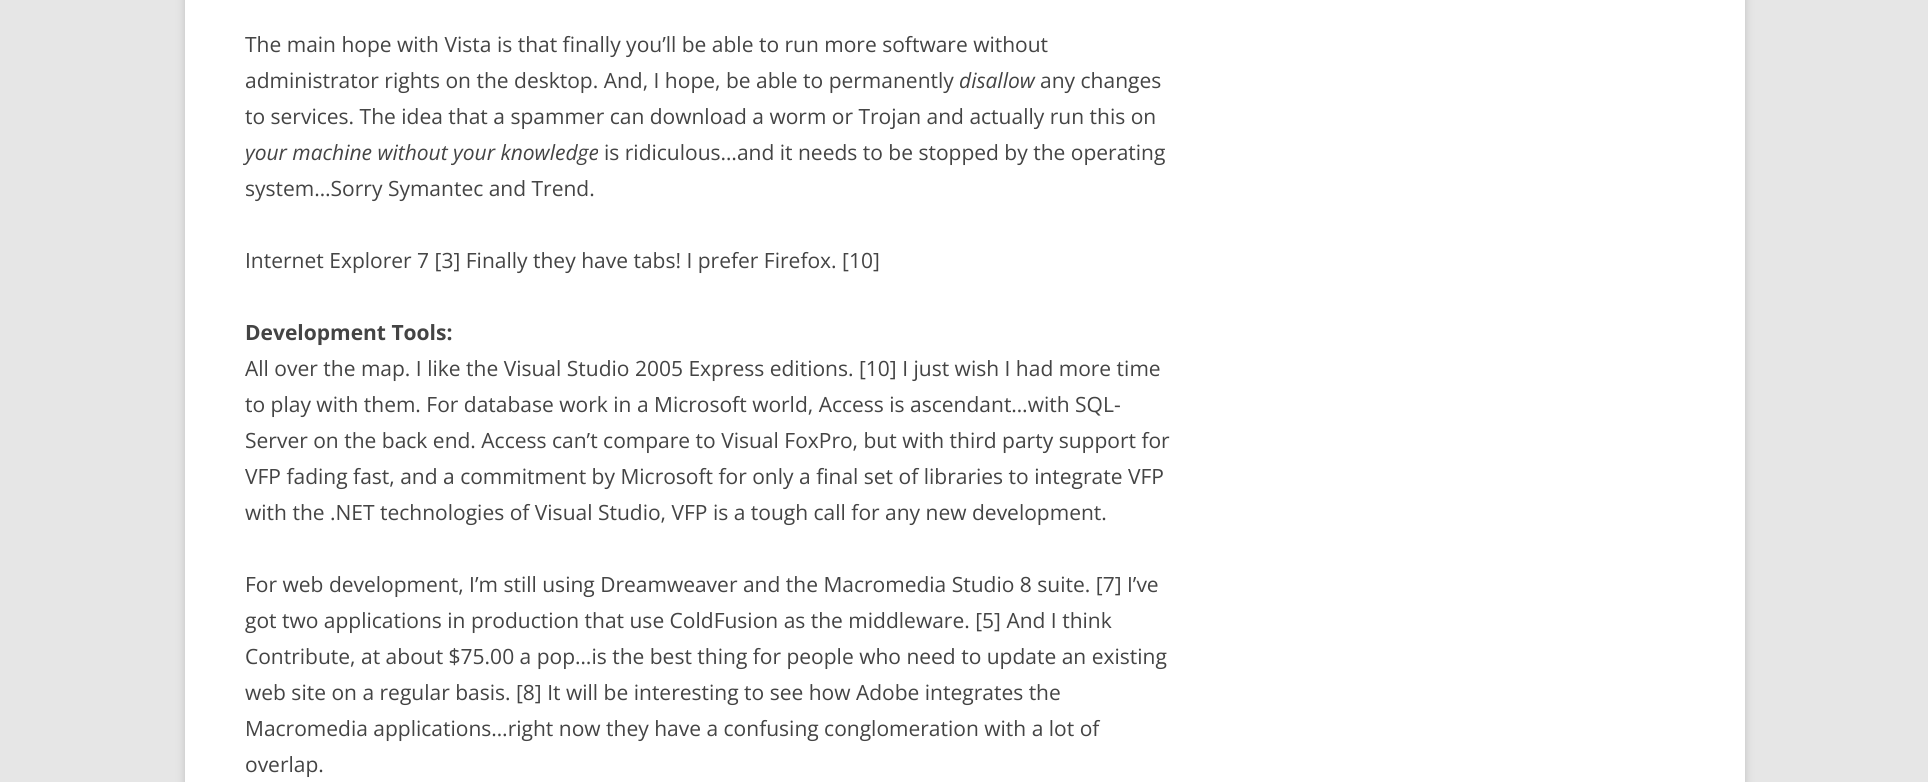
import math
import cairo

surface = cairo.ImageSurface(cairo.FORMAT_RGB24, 1928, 782)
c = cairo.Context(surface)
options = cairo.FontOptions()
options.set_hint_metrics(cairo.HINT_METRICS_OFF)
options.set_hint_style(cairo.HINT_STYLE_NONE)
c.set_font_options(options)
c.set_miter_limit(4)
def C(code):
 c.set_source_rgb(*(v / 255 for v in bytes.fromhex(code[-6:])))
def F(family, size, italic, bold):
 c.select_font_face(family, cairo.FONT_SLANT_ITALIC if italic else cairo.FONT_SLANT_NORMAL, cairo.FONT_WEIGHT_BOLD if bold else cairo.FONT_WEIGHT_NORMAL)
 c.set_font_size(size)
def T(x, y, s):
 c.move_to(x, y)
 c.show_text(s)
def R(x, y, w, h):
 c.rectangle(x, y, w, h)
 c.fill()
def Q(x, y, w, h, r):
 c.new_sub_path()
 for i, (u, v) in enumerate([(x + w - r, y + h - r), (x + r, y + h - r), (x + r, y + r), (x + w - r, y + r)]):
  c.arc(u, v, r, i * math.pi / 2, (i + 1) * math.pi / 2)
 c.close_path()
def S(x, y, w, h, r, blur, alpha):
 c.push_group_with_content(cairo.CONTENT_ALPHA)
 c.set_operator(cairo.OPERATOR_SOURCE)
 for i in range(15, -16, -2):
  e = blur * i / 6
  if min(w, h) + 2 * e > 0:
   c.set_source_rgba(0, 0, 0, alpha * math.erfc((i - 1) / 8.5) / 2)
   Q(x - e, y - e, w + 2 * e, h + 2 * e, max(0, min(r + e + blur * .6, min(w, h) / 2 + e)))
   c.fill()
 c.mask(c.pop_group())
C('e6e6e6')
c.paint()
C('646464')
S(185,-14,1560,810,0,4.5,.3)
C('ffffff')
R(185,0,1560,782)
F('Open Sans',21,0,0)
C('444444')
T(245,52,'The main hope with Vista is that finally you’ll be able to run more software without')
T(245,88,'administrator rights on the desktop. And, I hope, be able to permanently')
F('Open Sans',21,1,0)
T(959,88,'disallow')
F('Open Sans',21,0,0)
T(1040,88,'any changes')
T(245,124,'to services. The idea that a spammer can download a worm or Trojan and actually run this on')
F('Open Sans',21,1,0)
T(245,160,'your machine without your knowledge')
F('Open Sans',21,0,0)
T(604,160,'is ridiculous…and it needs to be stopped by the operating')
T(245,196,'system…Sorry Symantec and Trend.')
T(245,268,'Internet Explorer 7 [3] Finally they have tabs! I prefer Firefox. [10]')
F('Open Sans',21,0,1)
T(245,340,'Development Tools:')
F('Open Sans',21,0,0)
T(245,376,'All over the map. I like the Visual Studio 2005 Express editions. [10] I just wish I had more time')
T(245,412,'to play with them. For database work in a Microsoft world, Access is ascendant…with SQL-')
T(245,448,'Server on the back end. Access can’t compare to Visual FoxPro, but with third party support for')
T(245,484,'VFP fading fast, and a commitment by Microsoft for only a final set of libraries to integrate VFP')
T(245,520,'with the .NET technologies of Visual Studio, VFP is a tough call for any new development.')
T(245,592,'For web development, I’m still using Dreamweaver and the Macromedia Studio 8 suite. [7] I’ve')
T(245,628,'got two applications in production that use ColdFusion as the middleware. [5] And I think')
T(245,664,'Contribute, at about $75.00 a pop…is the best thing for people who need to update an existing')
T(245,700,'web site on a regular basis. [8] It will be interesting to see how Adobe integrates the')
T(245,736,'Macromedia applications…right now they have a confusing conglomeration with a lot of')
T(245,772,'overlap.')
surface.write_to_png('o.png')
